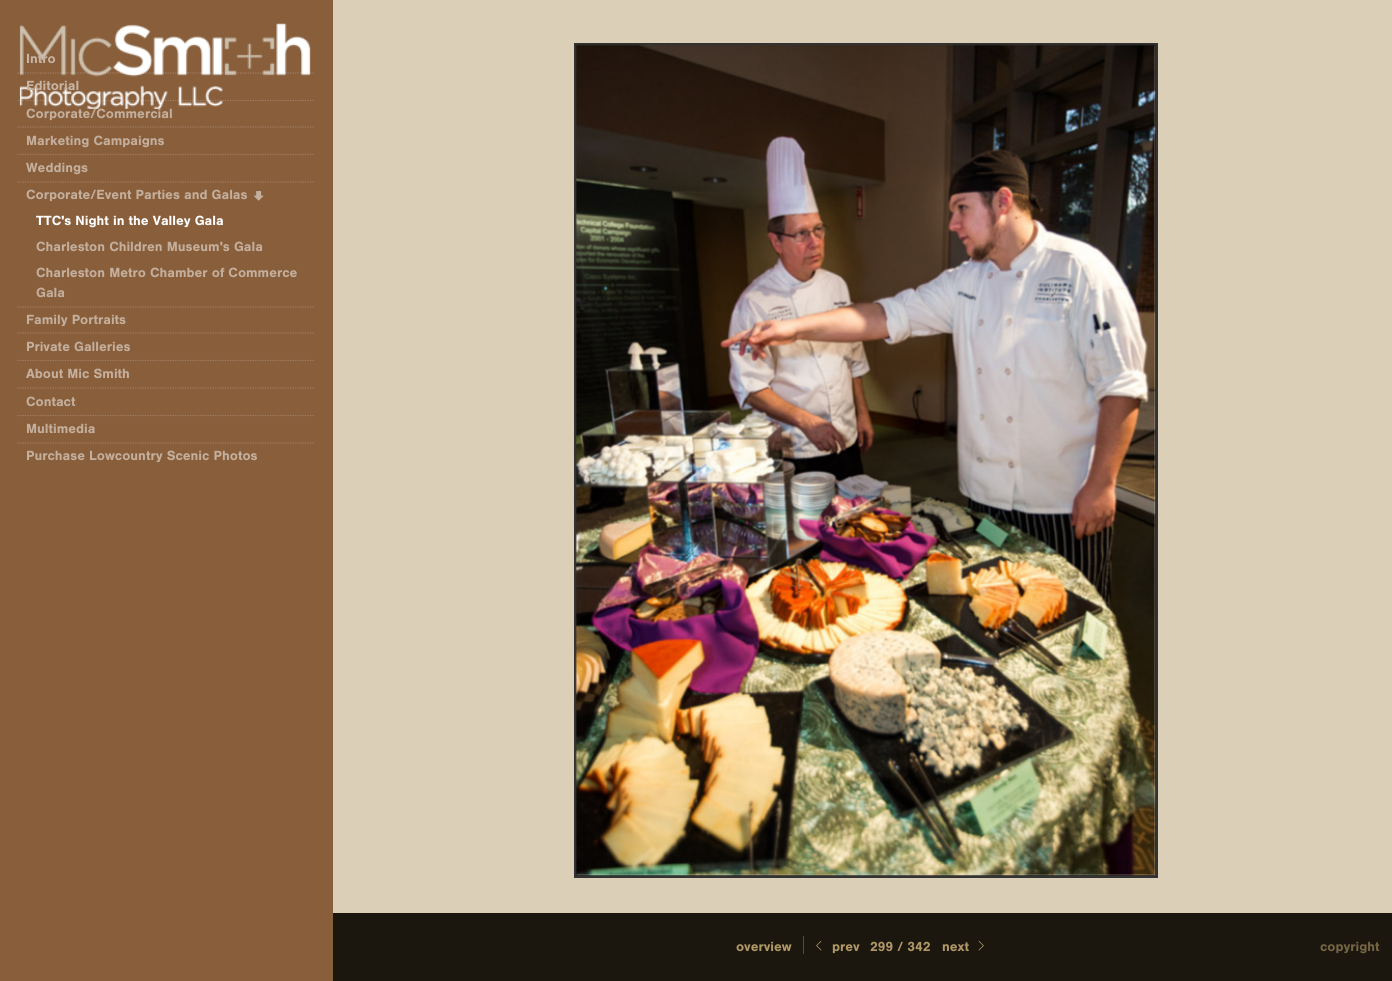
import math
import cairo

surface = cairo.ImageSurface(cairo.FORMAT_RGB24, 1392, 981)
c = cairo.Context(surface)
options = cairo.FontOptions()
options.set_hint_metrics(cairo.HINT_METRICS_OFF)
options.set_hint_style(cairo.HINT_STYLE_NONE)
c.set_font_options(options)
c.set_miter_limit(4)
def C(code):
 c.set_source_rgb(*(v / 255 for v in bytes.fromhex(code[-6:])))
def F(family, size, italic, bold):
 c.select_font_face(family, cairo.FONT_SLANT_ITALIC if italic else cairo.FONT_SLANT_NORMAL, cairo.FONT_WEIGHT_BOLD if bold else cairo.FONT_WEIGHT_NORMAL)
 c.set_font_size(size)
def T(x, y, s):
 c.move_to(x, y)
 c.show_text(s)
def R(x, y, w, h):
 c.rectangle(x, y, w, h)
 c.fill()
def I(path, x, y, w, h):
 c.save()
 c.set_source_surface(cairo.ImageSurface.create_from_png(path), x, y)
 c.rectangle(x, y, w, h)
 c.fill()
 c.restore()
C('dbcfb8')
c.paint()
C('885e3b')
R(0,0,333,981)
I('1.png',19,23,292,86)
c.new_path()
c.move_to(17.5,73)
c.line_to(315,73)
c.set_source_rgba(1,1,1,0.2)
c.set_line_width(1.2)
c.set_dash([1.25,1.25])
c.stroke()
F('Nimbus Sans',13.8,0,1)
C('c7b4a3')
T(26,63,'Intro')
c.new_path()
c.move_to(17.5,100.5)
c.line_to(315,100.5)
c.set_source_rgba(1,1,1,0.2)
c.stroke()
C('c7b4a3')
T(26,90,'Editorial')
c.new_path()
c.move_to(17.5,127)
c.line_to(315,127)
C('a07e62')
c.stroke()
C('c4af9d')
T(26,118,'Corporate/Commercial')
c.new_path()
c.move_to(17.5,154.5)
c.line_to(315,154.5)
C('a07e62')
c.stroke()
C('c4af9d')
T(26,145,'Marketing Campaigns')
c.new_path()
c.move_to(17.5,182)
c.line_to(315,182)
C('a07e62')
c.stroke()
C('c4af9d')
T(26,172,'Weddings')
c.new_path()
c.move_to(17.5,307)
c.line_to(315,307)
C('a07e62')
c.stroke()
C('c4af9d')
T(26,199,'Corporate/Event Parties and Galas')
I('2.png',253,191,11,10)
C('ffffff')
T(36,225,'TTC\'s Night in the Valley Gala')
C('c4af9d')
T(36,251,'Charleston Children Museum\'s Gala')
T(36,277,'Charleston Metro Chamber of Commerce')
T(36,297,'Gala')
c.new_path()
c.move_to(17.5,333)
c.line_to(315,333)
C('a07e62')
c.stroke()
C('c4af9d')
T(26,324,'Family Portraits')
c.new_path()
c.move_to(17.5,360.5)
c.line_to(315,360.5)
C('a07e62')
c.stroke()
C('c4af9d')
T(26,351,'Private Galleries')
c.new_path()
c.move_to(17.5,388)
c.line_to(315,388)
C('a07e62')
c.stroke()
C('c4af9d')
T(26,378,'About Mic Smith')
c.new_path()
c.move_to(17.5,415.5)
c.line_to(315,415.5)
C('a07e62')
c.stroke()
C('c4af9d')
T(26,406,'Contact')
c.new_path()
c.move_to(17.5,443)
c.line_to(315,443)
C('a07e62')
c.stroke()
C('c4af9d')
T(26,433,'Multimedia')
T(26,460,'Purchase Lowcountry Scenic Photos')
c.rectangle(575.5,44.5,581,832)
C('333333')
c.set_line_width(3)
c.set_dash([])
c.stroke()
I('3.png',575,44,581,832)
C('1c170e')
R(333,913,1059,68)
F('Nimbus Sans',13.75,0,1)
C('b19967')
T(736,951,'overview')
C('584b32')
R(803,936,1,18)
I('4.png',816,941,6,10)
C('b19967')
T(832,951,'prev')
T(870,951,'299 / 342')
T(942,951,'next')
I('5.png',978,940,6,11)
C('756543')
T(1320,951,'copyright')
surface.write_to_png('o.png')
